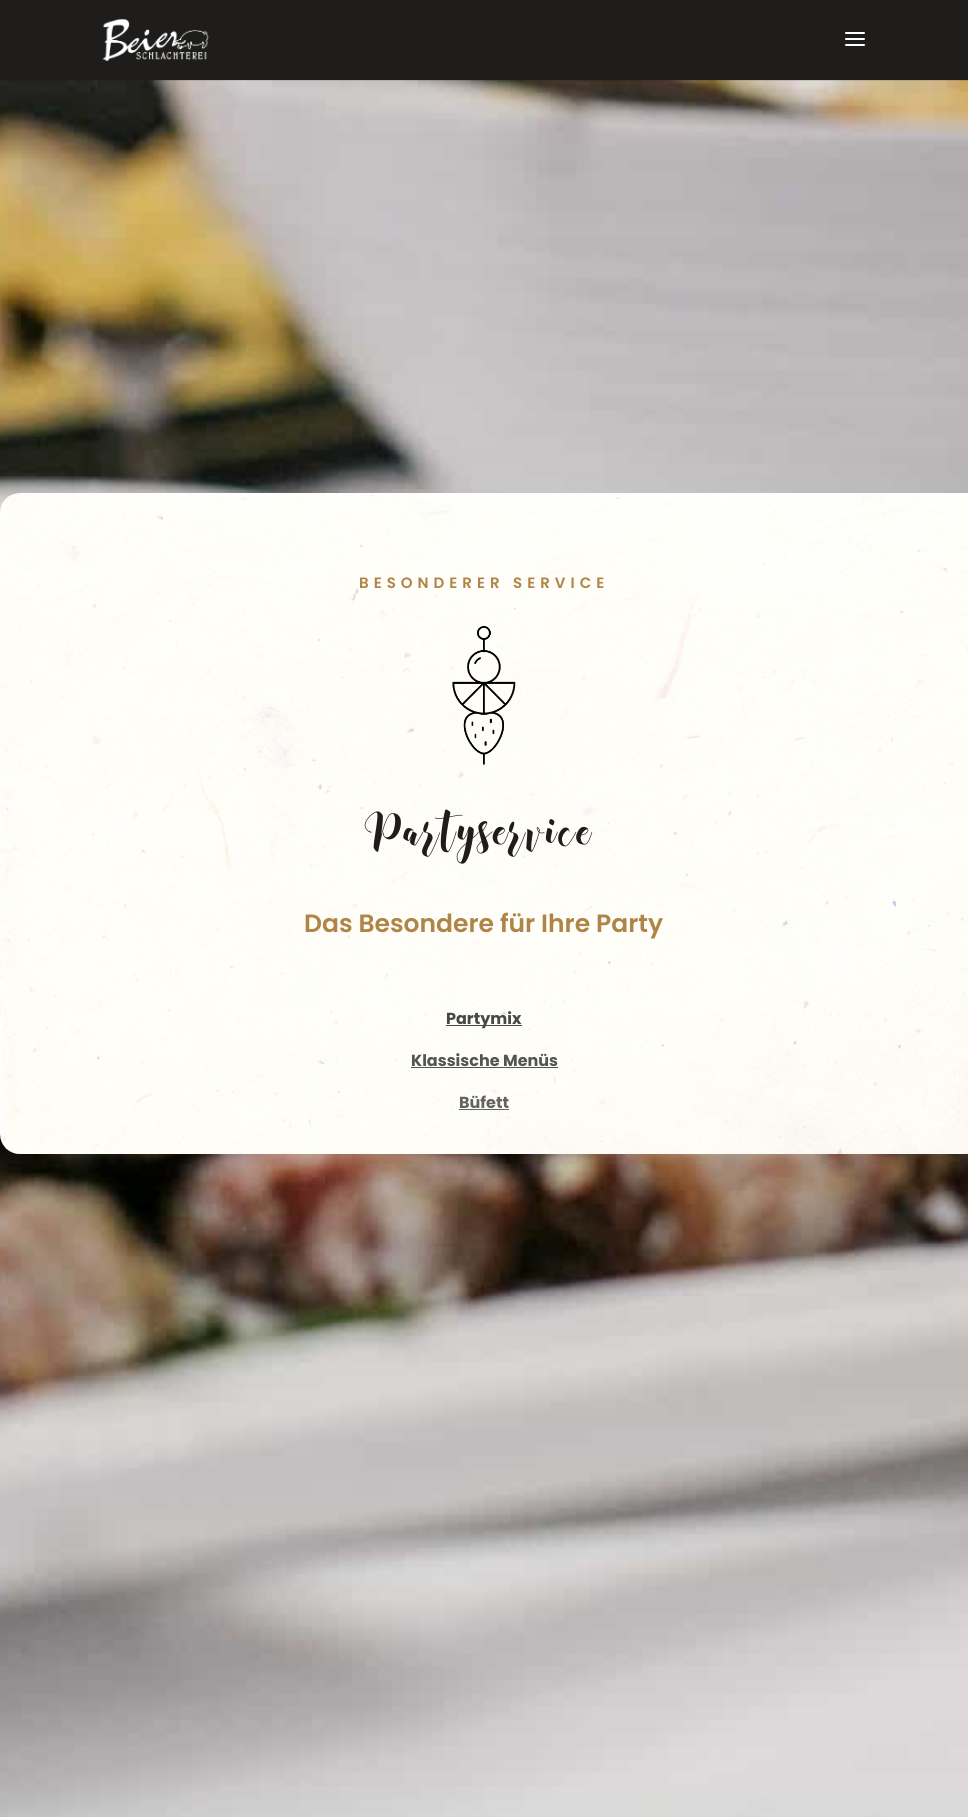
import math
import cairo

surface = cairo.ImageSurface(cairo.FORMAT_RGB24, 968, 1817)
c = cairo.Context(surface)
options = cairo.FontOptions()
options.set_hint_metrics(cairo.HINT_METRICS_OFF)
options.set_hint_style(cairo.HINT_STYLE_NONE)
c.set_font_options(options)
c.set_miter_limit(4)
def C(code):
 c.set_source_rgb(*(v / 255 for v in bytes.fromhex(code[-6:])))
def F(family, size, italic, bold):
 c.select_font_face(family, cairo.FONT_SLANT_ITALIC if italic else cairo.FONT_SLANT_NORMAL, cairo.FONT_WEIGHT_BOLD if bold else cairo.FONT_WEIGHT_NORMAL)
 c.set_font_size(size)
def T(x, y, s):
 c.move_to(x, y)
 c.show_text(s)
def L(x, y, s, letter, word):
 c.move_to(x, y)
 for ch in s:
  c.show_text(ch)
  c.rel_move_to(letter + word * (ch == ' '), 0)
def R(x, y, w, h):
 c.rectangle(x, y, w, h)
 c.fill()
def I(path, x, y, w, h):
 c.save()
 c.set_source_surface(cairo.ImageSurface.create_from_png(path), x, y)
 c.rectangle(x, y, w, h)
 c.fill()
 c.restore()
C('ffffff')
c.paint()
I('3.png',0,80,968,1737)
c.set_source_rgba(0,0,0,0.1)
R(0,80,968,1)
C('1e1d1c')
R(0,0,968,80)
I('1.png',102,19,107,43)
I('2.png',845,32,20,14)
I('4.png',0,493,968,661)
F('Poppins SemiBold',15,0,0)
C('af8447')
L(359,588,'BESONDERER SERVICE',5,0)
I('5.png',452,626,64,139)
F('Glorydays',42,0,0)
C('1e1d1c')
L(374,845,'Partyservice',3,0)
F('Poppins SemiBold',25,0,0)
C('af8447')
T(304,932,'Das Besondere für Ihre Party')
C('474747')
R(446,1025,76,1)
F('Poppins',16,0,1)
T(446,1024,'Partymix')
C('545454')
T(411,1066,'Klassische Menüs')
R(411,1067,147,1)
C('636363')
T(459,1108,'Büfett')
R(459,1109,50,1)
surface.write_to_png('o.png')
